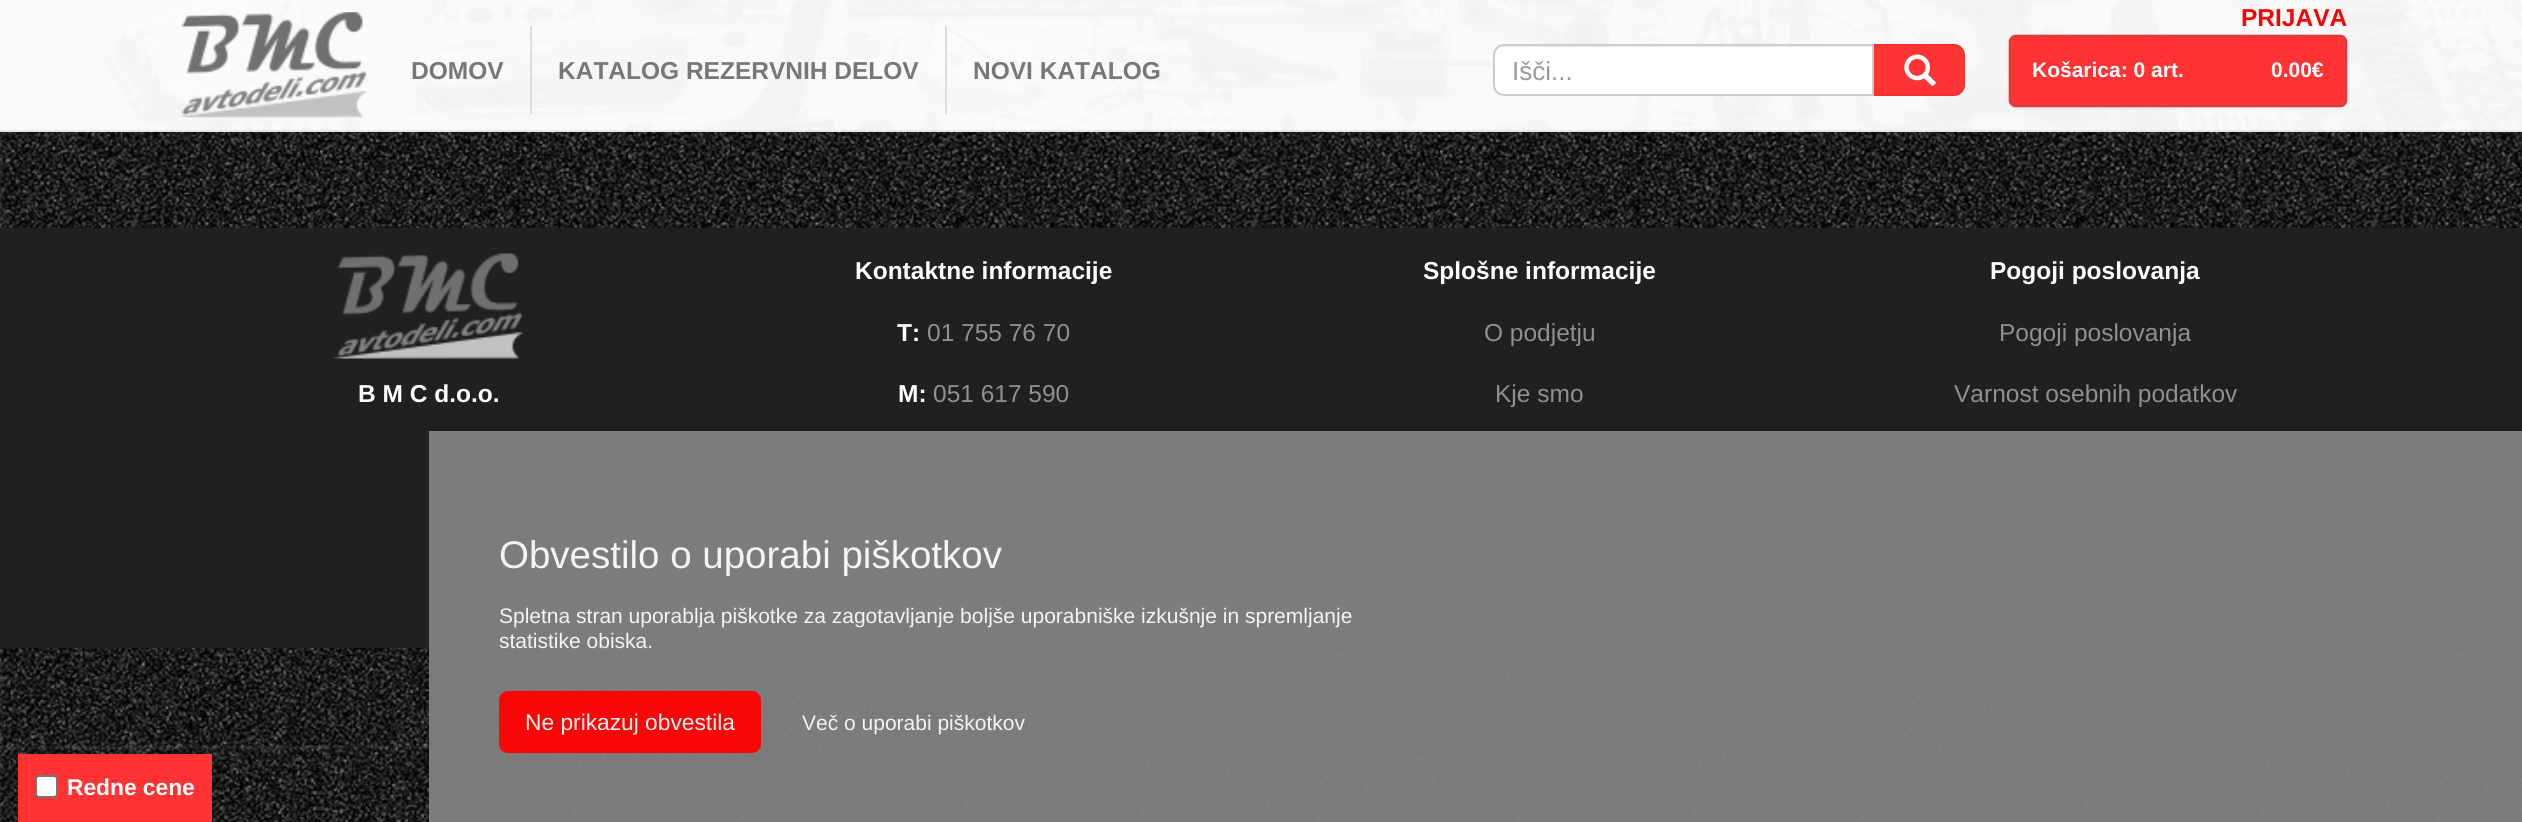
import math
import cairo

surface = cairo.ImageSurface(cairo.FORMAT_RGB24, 2522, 822)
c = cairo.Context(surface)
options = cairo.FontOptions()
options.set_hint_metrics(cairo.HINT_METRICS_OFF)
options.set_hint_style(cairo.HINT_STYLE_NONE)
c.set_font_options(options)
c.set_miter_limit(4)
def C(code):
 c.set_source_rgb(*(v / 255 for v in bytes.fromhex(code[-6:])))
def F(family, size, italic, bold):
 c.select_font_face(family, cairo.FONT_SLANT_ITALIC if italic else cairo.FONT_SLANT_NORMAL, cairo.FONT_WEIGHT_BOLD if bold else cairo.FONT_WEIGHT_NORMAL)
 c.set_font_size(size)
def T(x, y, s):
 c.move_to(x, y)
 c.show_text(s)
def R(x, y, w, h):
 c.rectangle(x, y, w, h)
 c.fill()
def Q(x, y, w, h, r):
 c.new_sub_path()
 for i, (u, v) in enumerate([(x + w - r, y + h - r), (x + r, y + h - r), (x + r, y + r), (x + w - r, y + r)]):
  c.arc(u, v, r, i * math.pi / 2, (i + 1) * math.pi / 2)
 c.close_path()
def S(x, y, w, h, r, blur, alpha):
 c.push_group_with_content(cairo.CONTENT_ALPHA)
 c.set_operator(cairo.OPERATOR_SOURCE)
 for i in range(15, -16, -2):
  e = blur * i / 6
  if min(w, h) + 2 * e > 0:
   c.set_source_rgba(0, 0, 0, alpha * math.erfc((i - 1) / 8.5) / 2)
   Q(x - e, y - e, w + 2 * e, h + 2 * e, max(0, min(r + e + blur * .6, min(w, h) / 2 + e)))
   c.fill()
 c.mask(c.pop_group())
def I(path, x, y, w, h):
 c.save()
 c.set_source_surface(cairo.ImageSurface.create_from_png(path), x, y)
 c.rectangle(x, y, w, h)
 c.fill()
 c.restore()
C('ffffff')
c.paint()
I('1.png',0,132,2522,690)
I('2.png',0,0,2522,130)
C('e7e7e7')
R(0,130,2522,2)
I('3.png',178,12,189,106)
C('dddddd')
R(530,26,2,88)
F('Liberation Sans',24.5,0,1)
C('777777')
T(411,79,'DOMOV')
C('dddddd')
R(945,26,2,88)
C('777777')
T(558,79,'KATALOG REZERVNIH DELOV')
T(973,79,'NOVI KATALOG')
C('ffffff')
c.new_path()
c.move_to(1504,44)
c.line_to(1874,44)
c.line_to(1874,96)
c.line_to(1504,96)
c.curve_to(1498,96,1493,91,1493,85)
c.line_to(1493,55)
c.curve_to(1493,49,1498,44,1504,44)
c.close_path()
c.fill()
C('ececec')
c.new_path()
c.move_to(1503,47)
c.line_to(1872,47)
c.line_to(1872,95)
c.line_to(1873,95)
c.line_to(1873,46)
c.line_to(1504,46)
c.curve_to(1501,46,1499,47,1497,49)
c.curve_to(1499,48,1501,47,1503,47)
c.close_path()
c.fill()
c.new_path()
c.move_to(1504,45)
c.line_to(1873,45)
c.line_to(1873,95)
c.line_to(1504,95)
c.curve_to(1498.5,95,1494,90.5,1494,85)
c.line_to(1494,55)
c.curve_to(1494,49.5,1498.5,45,1504,45)
c.close_path()
C('cccccc')
c.stroke()
F('Liberation Sans',26,0,0)
C('999999')
T(1512,80,'Išči...')
C('ff3333')
c.new_path()
c.move_to(1875,45)
c.line_to(1954,45)
c.curve_to(1959.5,45,1964,49.5,1964,55)
c.line_to(1964,85)
c.curve_to(1964,90.5,1959.5,95,1954,95)
c.line_to(1875,95)
c.close_path()
c.fill_preserve()
C('f2322f')
c.stroke()
I('4.png',1904,54,32,32)
F('Liberation Sans',24.5,0,1)
C('ff0000')
T(2241,26,'PRIJAVA')
C('ff0000')
S(2009,35,338,72,7,.5,1)
C('ff3333')
Q(2010,36,336,70,6)
c.fill_preserve()
C('d43f3a')
c.stroke()
F('Liberation Sans',21,0,1)
C('ffffff')
T(2032,77,'Košarica: 0 art.')
T(2271,77,'0.00€')
C('202020')
R(0,228,2522,420)
I('5.png',332,253,192,106)
F('Liberation Sans',24.5,0,1)
C('ffffff')
T(855,279,'Kontaktne informacije')
T(1423,279,'Splošne informacije')
T(1990,279,'Pogoji poslovanja')
T(897,341,'T:')
F('Liberation Sans',24.5,0,0)
C('909090')
T(927,341,'01 755 76 70')
T(1484,341,'O podjetju')
T(1999,341,'Pogoji poslovanja')
F('Liberation Sans',24.5,0,1)
C('ffffff')
T(358,402,'B M C d.o.o.')
T(898,402,'M:')
F('Liberation Sans',24.5,0,0)
C('909090')
T(933,402,'051 617 590')
T(1495,402,'Kje smo')
T(1954,402,'Varnost osebnih podatkov')
c.set_source_rgba(0.502,0.502,0.502,0.95)
R(429,431,2093,391)
F('Liberation Sans',38.5,0,0)
C('f4f4f4')
T(499,568,'Obvestilo o uporabi piškotkov')
F('Liberation Sans',21,0,0)
T(499,623,'Spletna stran uporablja piškotke za zagotavljanje boljše uporabniške izkušnje in spremljanje')
T(499,648,'statistike obiska.')
c.set_source_rgba(1,0,0,0.95)
Q(499,691,262,62,9)
c.fill()
F('Liberation Sans',22.75,0,0)
C('fff3f3')
T(525,730,'Ne prikazuj obvestila')
F('Liberation Sans',21,0,0)
C('f4f4f4')
T(802,730,'Več o uporabi piškotkov')
C('ff3333')
R(18,754,194,68)
C('ffffff')
Q(36,776,21,21,3)
c.fill_preserve()
C('767676')
c.stroke()
F('Liberation Sans',22.75,0,1)
C('ffffff')
T(67,795,'Redne cene')
surface.write_to_png('o.png')
